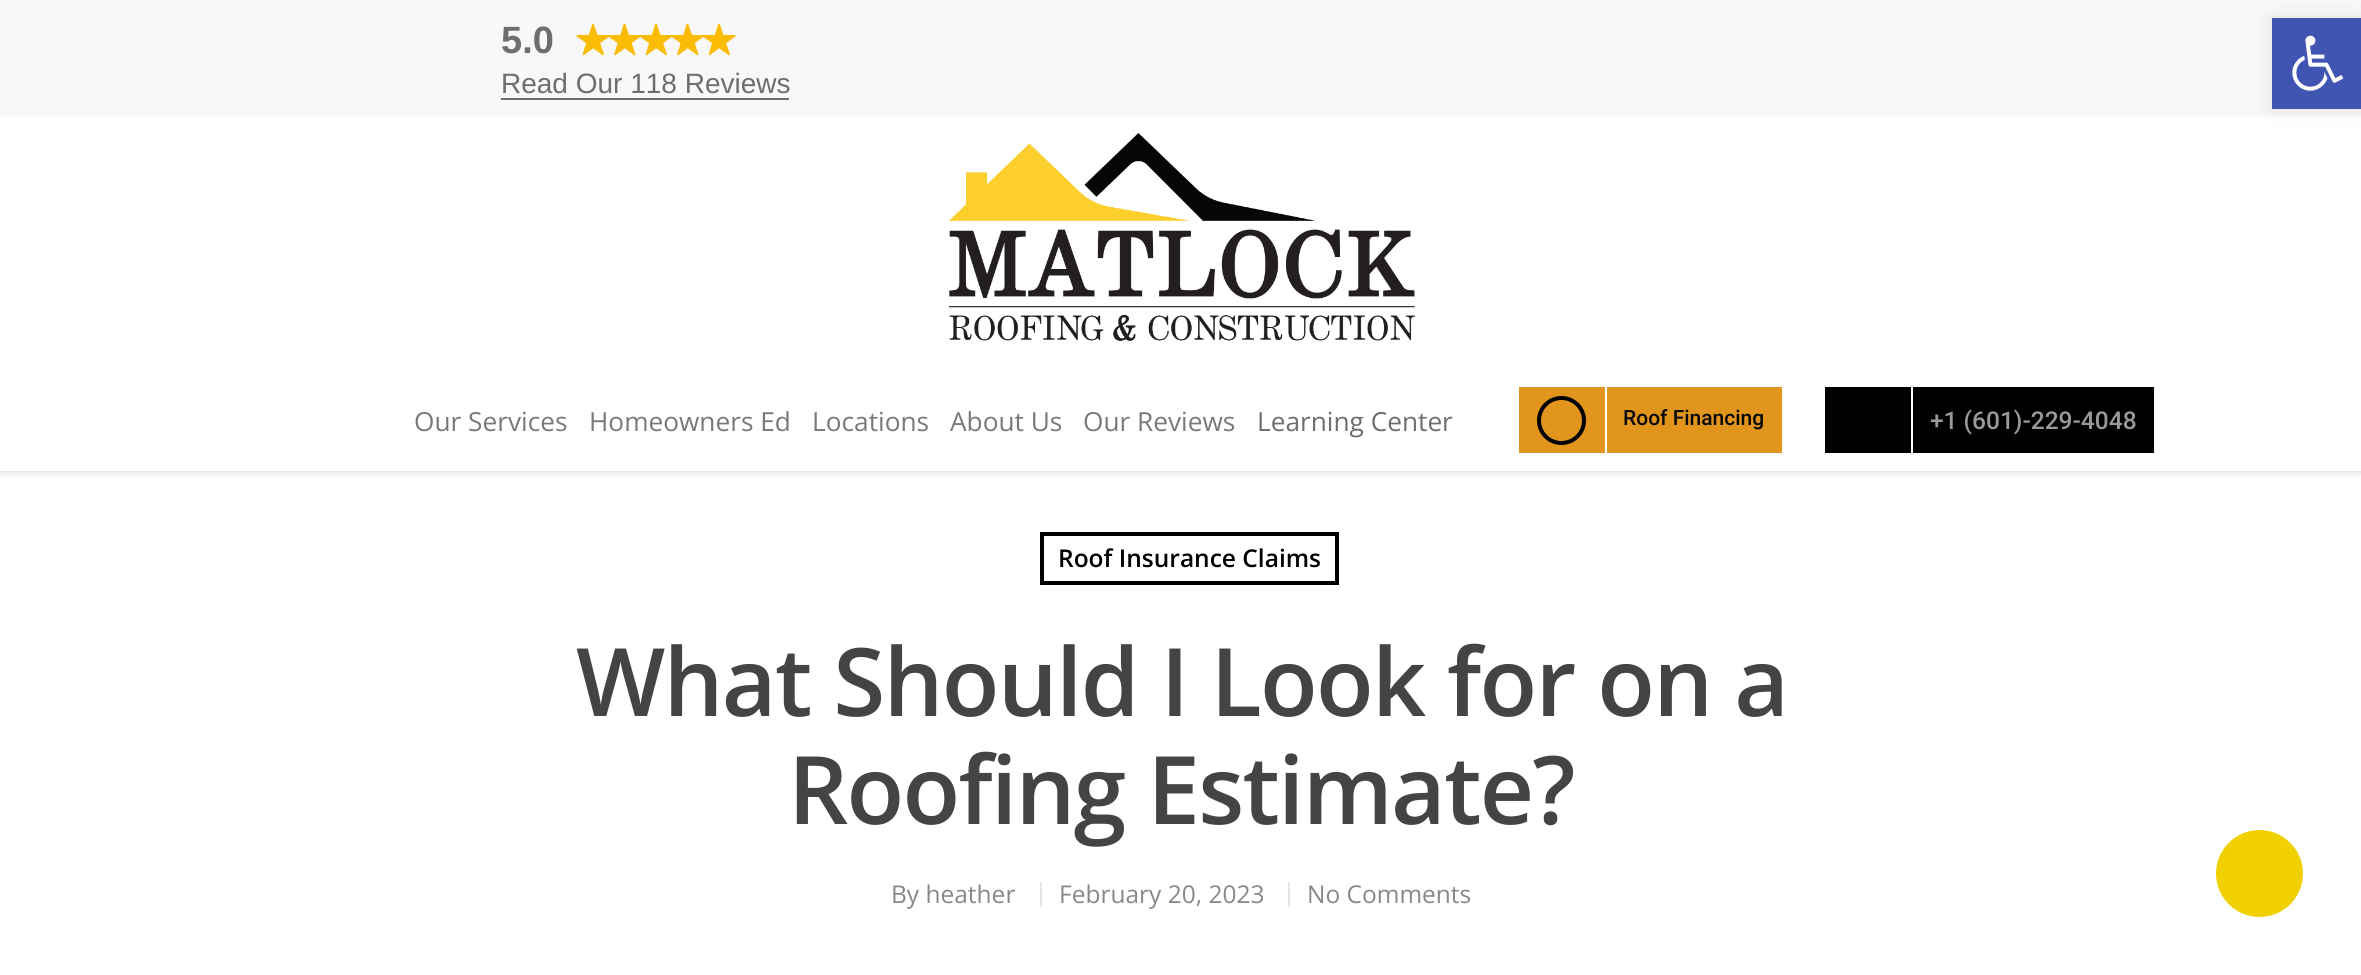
import math
import cairo

surface = cairo.ImageSurface(cairo.FORMAT_RGB24, 2361, 975)
c = cairo.Context(surface)
options = cairo.FontOptions()
options.set_hint_metrics(cairo.HINT_METRICS_OFF)
options.set_hint_style(cairo.HINT_STYLE_NONE)
c.set_font_options(options)
c.set_miter_limit(4)
def C(code):
 c.set_source_rgb(*(v / 255 for v in bytes.fromhex(code[-6:])))
def F(family, size, italic, bold):
 c.select_font_face(family, cairo.FONT_SLANT_ITALIC if italic else cairo.FONT_SLANT_NORMAL, cairo.FONT_WEIGHT_BOLD if bold else cairo.FONT_WEIGHT_NORMAL)
 c.set_font_size(size)
def T(x, y, s):
 c.move_to(x, y)
 c.show_text(s)
def L(x, y, s, letter, word):
 c.move_to(x, y)
 for ch in s:
  c.show_text(ch)
  c.rel_move_to(letter + word * (ch == ' '), 0)
def R(x, y, w, h):
 c.rectangle(x, y, w, h)
 c.fill()
def Q(x, y, w, h, r):
 c.new_sub_path()
 for i, (u, v) in enumerate([(x + w - r, y + h - r), (x + r, y + h - r), (x + r, y + r), (x + w - r, y + r)]):
  c.arc(u, v, r, i * math.pi / 2, (i + 1) * math.pi / 2)
 c.close_path()
def S(x, y, w, h, r, blur, alpha):
 c.push_group_with_content(cairo.CONTENT_ALPHA)
 c.set_operator(cairo.OPERATOR_SOURCE)
 for i in range(15, -16, -2):
  e = blur * i / 6
  if min(w, h) + 2 * e > 0:
   c.set_source_rgba(0, 0, 0, alpha * math.erfc((i - 1) / 8.5) / 2)
   Q(x - e, y - e, w + 2 * e, h + 2 * e, max(0, min(r + e + blur * .6, min(w, h) / 2 + e)))
   c.fill()
 c.mask(c.pop_group())
def I(path, x, y, w, h):
 c.save()
 c.set_source_surface(cairo.ImageSurface.create_from_png(path), x, y)
 c.rectangle(x, y, w, h)
 c.fill()
 c.restore()
C('ffffff')
c.paint()
C('cccccc')
S(0,0,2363,471,0,4.5,1)
C('f8f8f8')
R(0,0,2361,116)
F('Liberation Sans',38,0,1)
C('6f6e6e')
T(501,53,'5.0')
I('1.png',576,23,33,33)
I('2.png',608,23,33,33)
I('3.png',640,23,32,33)
I('2.png',671,23,33,33)
I('4.png',703,23,33,33)
F('Liberation Sans',28,0,0)
T(501,93,'Read Our 118 Reviews')
R(501,98,288,2)
C('ffffff')
R(0,116,2361,355)
I('5.png',948,133,468,208)
F('Open Sans',26.25,0,0)
C('7a7979')
T(414,431,'Our Services')
T(589,431,'Homeowners Ed')
T(812,431,'Locations')
T(950,431,'About Us')
T(1083,431,'Our Reviews')
C('6f6e6e')
T(1257,431,'Learning Center')
C('e1951d')
R(1519,387,263,66)
c.new_path()
c.arc(1561.5,420.5,22.5,0,2 * math.pi)
C('000000')
c.set_line_width(4)
c.stroke()
C('ffffff')
R(1605,387,2,66)
F('Roboto Medium',21,0,0)
C('080808')
T(1623,425,'Roof Financing')
C('000000')
R(1825,387,329,66)
C('ffffff')
R(1911,387,2,66)
F('Roboto Medium',24.5,0,0)
C('999999')
T(1930,429,'+1 (601)-229-4048')
c.rectangle(1042,534,295,49)
C('000000')
c.stroke()
F('Open Sans SemiBold',24.5,0,0)
T(1058,567,'Roof Insurance Claims')
F('Open Sans SemiBold',94.5,0,0)
C('444444')
L(576,716,'What Should I Look for on a',-1.75,0)
L(788,824,'Roofing Estimate?',-1.75,0)
F('Open Sans',24.5,0,0)
C('888888')
T(891,903,'By heather')
C('e6e6e6')
R(1040,882,2,25)
C('888888')
T(1059,903,'February 20, 2023')
C('e6e6e6')
R(1288,882,2,25)
C('888888')
T(1307,903,'No Comments')
C('f1d002')
c.new_path()
c.arc(2259.5,873.5,43.5,0,2 * math.pi)
c.fill()
C('000000')
S(2272,18,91,91,0,9,.1)
C('4054b2')
R(2272,18,89,91)
I('6.png',2292,35,52,56)
surface.write_to_png('o.png')
